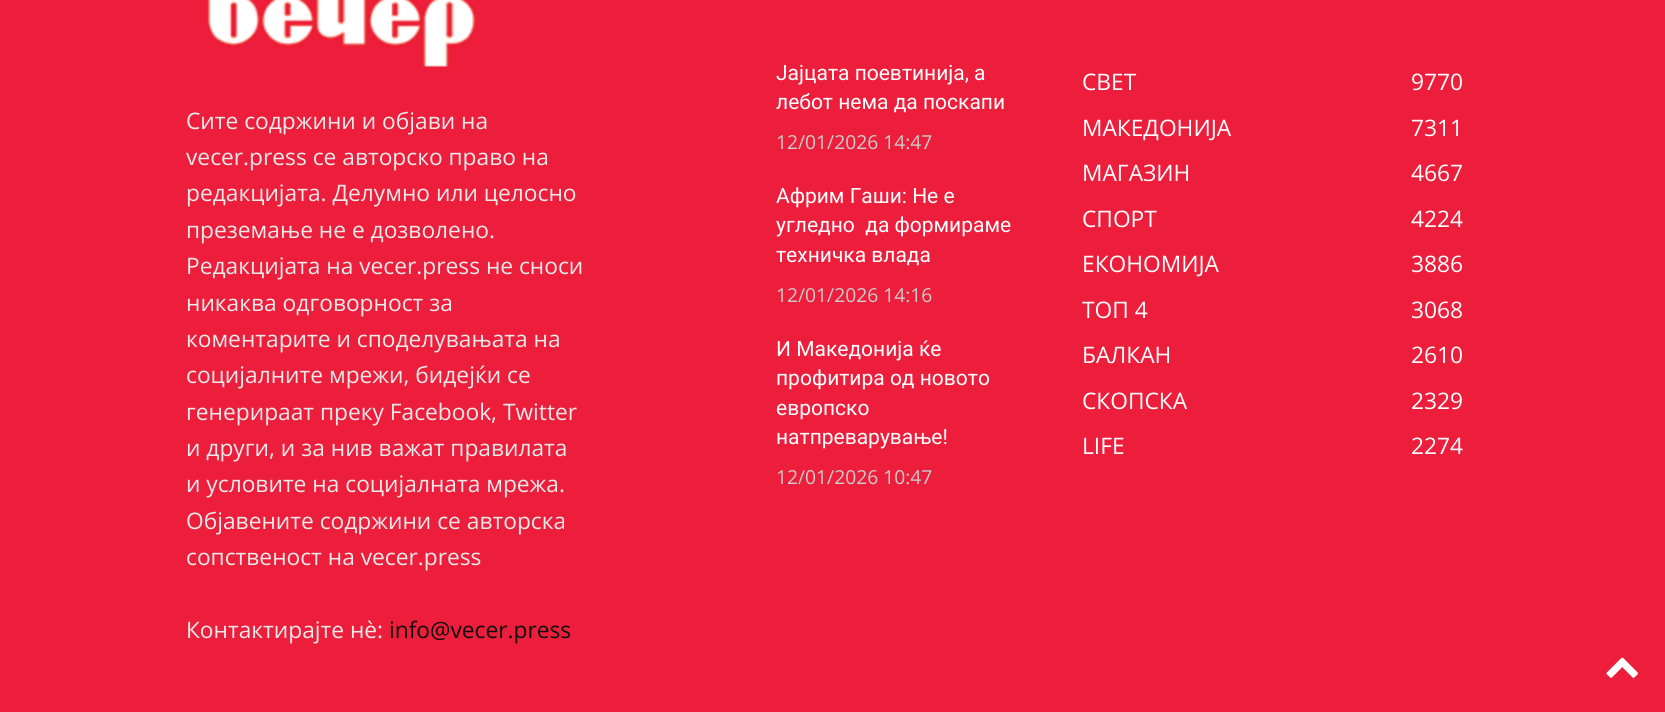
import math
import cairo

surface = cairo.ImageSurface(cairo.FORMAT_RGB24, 1665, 712)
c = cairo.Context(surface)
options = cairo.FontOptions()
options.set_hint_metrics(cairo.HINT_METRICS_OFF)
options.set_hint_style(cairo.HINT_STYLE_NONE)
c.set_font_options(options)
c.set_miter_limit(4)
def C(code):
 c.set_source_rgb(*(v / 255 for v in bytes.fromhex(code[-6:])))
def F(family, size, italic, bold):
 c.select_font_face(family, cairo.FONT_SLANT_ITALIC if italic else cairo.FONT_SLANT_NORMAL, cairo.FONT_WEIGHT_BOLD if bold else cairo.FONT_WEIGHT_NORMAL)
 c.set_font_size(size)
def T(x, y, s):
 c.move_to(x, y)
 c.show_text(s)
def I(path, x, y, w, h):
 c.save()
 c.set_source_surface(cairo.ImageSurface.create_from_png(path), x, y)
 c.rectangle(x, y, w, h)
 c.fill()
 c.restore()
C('ec1e3b')
c.paint()
I('1.png',206,0,271,67)
F('Open Sans',22.75,0,0)
C('eaeaea')
T(186,129,'Сите содржини и објави на')
T(186,165,'vecer.press се авторско право на')
T(186,201,'редакцијата. Делумно или целосно')
T(186,238,'преземање не е дозволено.')
T(186,274,'Редакцијата на vecer.press не сноси')
T(186,311,'никаква одговорност за')
T(186,347,'коментарите и споделувањата на')
T(186,383,'социјалните мрежи, бидејќи се')
T(186,420,'генерираат преку Facebook, Twitter')
T(186,456,'и други, и за нив важат правилата')
T(186,492,'и условите на социјалната мрежа.')
T(186,529,'Oбјавените содржини се авторска')
T(186,565,'сопственост на vecer.press')
T(186,638,'Контактирајте нѐ:')
C('0d0d0d')
T(389,638,'info@vecer.press')
F('Roboto',21,0,0)
C('ffffff')
T(776,80,'Јајцата поевтинија, а')
T(776,109,'лебот нема да поскапи')
F('Open Sans',19.25,0,0)
C('cccccc')
T(776,149,'12/01/2026 14:47')
F('Roboto',21,0,0)
C('ffffff')
T(776,203,'Африм Гаши: Не е')
T(776,232,'угледно  да формираме')
T(776,262,'техничка влада')
F('Open Sans',19.25,0,0)
C('cccccc')
T(776,302,'12/01/2026 14:16')
F('Roboto',21,0,0)
C('ffffff')
T(776,356,'И Македонија ќе')
T(776,385,'профитира од новото')
T(776,415,'европско')
T(776,444,'натпреварување!')
F('Open Sans',19.25,0,0)
C('cccccc')
T(776,484,'12/01/2026 10:47')
F('Open Sans',22.75,0,0)
C('ffffff')
T(1082,90,'СВЕТ')
T(1411,90,'9770')
T(1082,136,'МАКЕДОНИЈА')
T(1411,136,'7311')
T(1082,181,'МАГАЗИН')
T(1411,181,'4667')
T(1082,227,'СПОРТ')
T(1411,227,'4224')
T(1082,272,'ЕКОНОМИЈА')
T(1411,272,'3886')
c.save()
c.rectangle(1082,0,399,492)
c.clip()
T(1082,318,'ТОП 4')
c.restore()
T(1411,318,'3068')
T(1082,363,'БАЛКАН')
T(1411,363,'2610')
T(1082,409,'СКОПСКА')
T(1411,409,'2329')
T(1082,454,'LIFE')
T(1411,454,'2274')
I('2.png',1606,657,32,21)
surface.write_to_png('o.png')
